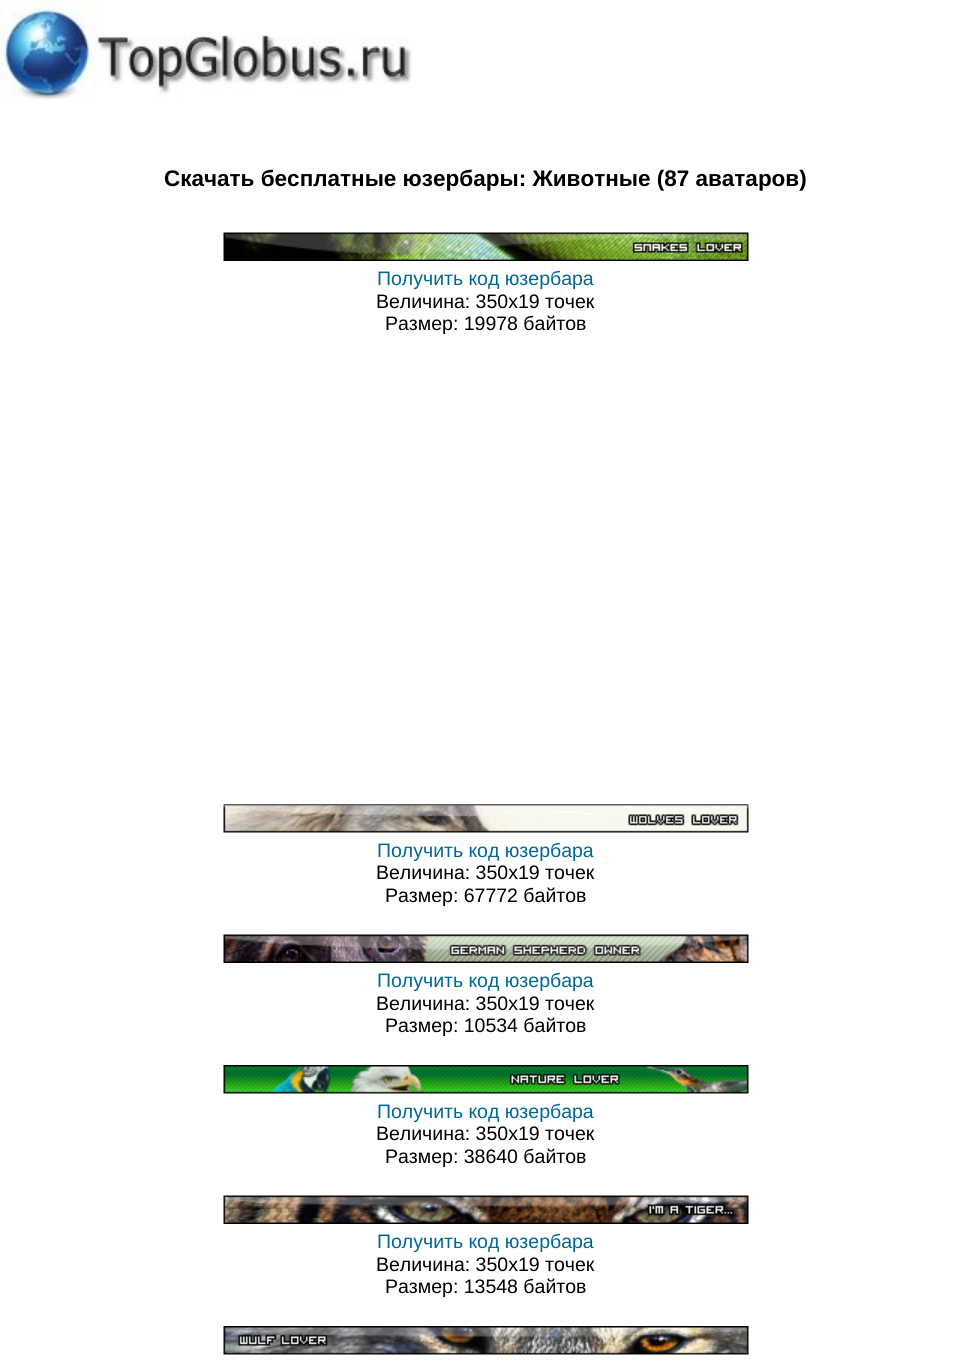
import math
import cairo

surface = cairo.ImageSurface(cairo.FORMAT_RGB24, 970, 1372)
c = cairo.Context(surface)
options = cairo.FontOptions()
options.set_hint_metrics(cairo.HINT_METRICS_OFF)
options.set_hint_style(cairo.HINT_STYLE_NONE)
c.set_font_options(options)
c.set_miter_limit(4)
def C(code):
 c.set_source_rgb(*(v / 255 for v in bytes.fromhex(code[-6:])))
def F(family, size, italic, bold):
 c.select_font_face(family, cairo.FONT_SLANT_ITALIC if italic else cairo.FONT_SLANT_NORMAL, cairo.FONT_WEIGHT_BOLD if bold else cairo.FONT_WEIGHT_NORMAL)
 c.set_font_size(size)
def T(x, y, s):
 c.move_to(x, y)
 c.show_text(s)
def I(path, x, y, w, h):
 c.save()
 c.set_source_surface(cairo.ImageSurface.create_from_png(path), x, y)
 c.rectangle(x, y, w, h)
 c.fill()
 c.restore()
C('ffffff')
c.paint()
I('1.png',0,0,412,100)
F('Liberation Sans',22.5,0,1)
C('000000')
T(164,186,'Скачать бесплатные юзербары: Животные (87 аватаров)')
I('2.png',223,232,526,29)
F('Liberation Sans',19.5,0,0)
C('006699')
T(377,285,'Получить код юзербара')
C('000000')
T(376,308,'Величина: 350x19 точек')
T(385,330,'Размер: 19978 байтов')
I('3.png',223,804,526,29)
C('006699')
T(377,857,'Получить код юзербара')
C('000000')
T(376,879,'Величина: 350x19 точек')
T(385,902,'Размер: 67772 байтов')
I('4.png',223,934,526,29)
C('006699')
T(377,987,'Получить код юзербара')
C('000000')
T(376,1010,'Величина: 350x19 точек')
T(385,1032,'Размер: 10534 байтов')
I('5.png',223,1065,526,29)
C('006699')
T(377,1118,'Получить код юзербара')
C('000000')
T(376,1140,'Величина: 350x19 точек')
T(385,1163,'Размер: 38640 байтов')
I('6.png',223,1195,526,29)
C('006699')
T(377,1248,'Получить код юзербара')
C('000000')
T(376,1271,'Величина: 350x19 точек')
T(385,1293,'Размер: 13548 байтов')
I('7.png',223,1326,526,29)
surface.write_to_png('o.png')
